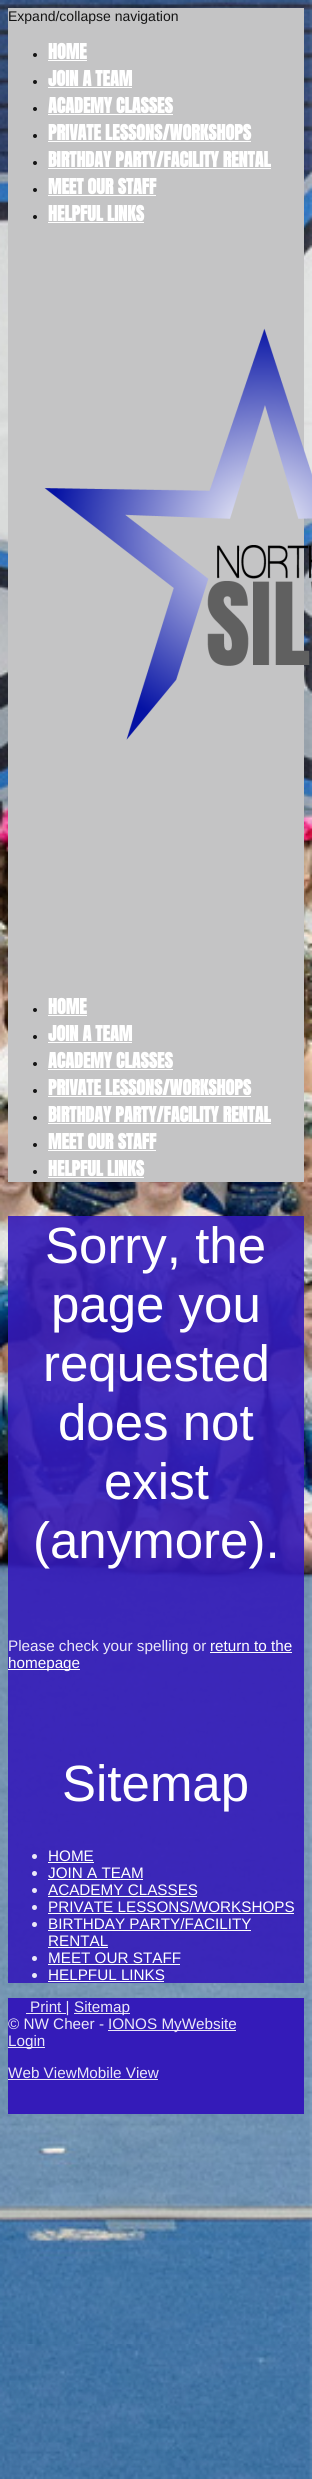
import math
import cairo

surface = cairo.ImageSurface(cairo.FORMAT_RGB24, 312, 2479)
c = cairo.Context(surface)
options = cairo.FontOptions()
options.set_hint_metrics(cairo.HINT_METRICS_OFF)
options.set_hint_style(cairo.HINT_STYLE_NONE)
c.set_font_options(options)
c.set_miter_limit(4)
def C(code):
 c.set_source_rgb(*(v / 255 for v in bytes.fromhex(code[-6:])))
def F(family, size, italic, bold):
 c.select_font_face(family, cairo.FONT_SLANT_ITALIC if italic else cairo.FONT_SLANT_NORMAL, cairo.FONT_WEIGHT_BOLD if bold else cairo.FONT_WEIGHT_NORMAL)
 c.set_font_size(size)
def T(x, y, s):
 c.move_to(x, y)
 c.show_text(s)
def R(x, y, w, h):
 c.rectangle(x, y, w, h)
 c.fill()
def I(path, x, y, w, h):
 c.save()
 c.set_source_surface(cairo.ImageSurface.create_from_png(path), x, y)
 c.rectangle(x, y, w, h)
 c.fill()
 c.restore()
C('ffffff')
c.paint()
I('1.png',0,0,312,2479)
C('c4c4c5')
R(8,8,296,1174)
F('Liberation Sans',14,0,0)
C('141414')
T(8,21,'Expand/collapse navigation')
c.new_path()
c.arc(35,55,2,0,2 * math.pi)
c.fill()
F('Anton',18,0,1)
C('ffffff')
T(48,59,'HOME')
R(48,60,39,1)
C('141414')
c.new_path()
c.arc(35,82,2,0,2 * math.pi)
c.fill()
C('ffffff')
T(48,86,'JOIN A TEAM')
R(48,87,84,1)
C('141414')
c.new_path()
c.arc(35,109,2,0,2 * math.pi)
c.fill()
C('ffffff')
T(48,113,'ACADEMY CLASSES')
R(48,114,125,1)
C('141414')
c.new_path()
c.arc(35,136,2,0,2 * math.pi)
c.fill()
C('ffffff')
T(48,140,'PRIVATE LESSONS/WORKSHOPS')
R(48,141,203,1)
C('141414')
c.new_path()
c.arc(35,163,2,0,2 * math.pi)
c.fill()
C('ffffff')
T(48,167,'BIRTHDAY PARTY/FACILITY RENTAL')
R(48,168,223,1)
C('141414')
c.new_path()
c.arc(35,190,2,0,2 * math.pi)
c.fill()
C('ffffff')
T(48,194,'MEET OUR STAFF')
R(48,195,108,1)
C('141414')
c.new_path()
c.arc(35,217,2,0,2 * math.pi)
c.fill()
C('ffffff')
T(48,221,'HELPFUL LINKS')
R(48,222,96,1)
I('2.png',44,328,268,412)
C('141414')
c.arc(35,1010,2,0,2 * math.pi)
c.fill()
C('ffffff')
T(48,1014,'HOME')
R(48,1015,39,1)
C('141414')
c.new_path()
c.arc(35,1037,2,0,2 * math.pi)
c.fill()
C('ffffff')
T(48,1041,'JOIN A TEAM')
R(48,1042,84,1)
C('141414')
c.new_path()
c.arc(35,1064,2,0,2 * math.pi)
c.fill()
C('ffffff')
T(48,1068,'ACADEMY CLASSES')
R(48,1069,125,1)
C('141414')
c.new_path()
c.arc(35,1091,2,0,2 * math.pi)
c.fill()
C('ffffff')
T(48,1095,'PRIVATE LESSONS/WORKSHOPS')
R(48,1096,203,1)
C('141414')
c.new_path()
c.arc(35,1118,2,0,2 * math.pi)
c.fill()
C('ffffff')
T(48,1122,'BIRTHDAY PARTY/FACILITY RENTAL')
R(48,1123,223,1)
C('141414')
c.new_path()
c.arc(35,1145,2,0,2 * math.pi)
c.fill()
C('ffffff')
T(48,1149,'MEET OUR STAFF')
R(48,1150,108,1)
C('141414')
c.new_path()
c.arc(35,1172,2,0,2 * math.pi)
c.fill()
C('ffffff')
T(48,1176,'HELPFUL LINKS')
R(48,1177,96,1)
c.set_source_rgba(0.204,0.106,0.725,0.9)
R(8,1216,296,767)
F('Liberation Sans',51,0,0)
C('ffffff')
T(45,1263,'Sorry, the')
T(51,1322,'page you')
T(43,1381,'requested')
T(58,1440,'does not')
T(104,1499,'exist')
T(33,1558,'(anymore).')
F('Liberation Sans',15.25,0,0)
C('ebe8f8')
T(8,1651,'Please check your spelling or')
C('ffffff')
T(210,1651,'return to the')
R(210,1652,82,1)
R(8,1669,72,1)
T(8,1668,'homepage')
F('Liberation Sans',51,0,0)
T(62,1801,'Sitemap')
C('ebe8f8')
c.new_path()
c.arc(34.5,1856.5,2.5,0,2 * math.pi)
c.fill()
F('Liberation Sans',15.25,0,0)
C('ffffff')
T(48,1861,'HOME')
R(48,1862,46,1)
C('ebe8f8')
c.new_path()
c.arc(34.5,1873.5,2.5,0,2 * math.pi)
c.fill()
C('ffffff')
T(48,1878,'JOIN A TEAM')
R(48,1879,95,1)
C('ebe8f8')
c.new_path()
c.arc(34.5,1890.5,2.5,0,2 * math.pi)
c.fill()
C('ffffff')
T(48,1895,'ACADEMY CLASSES')
R(48,1896,149,1)
C('ebe8f8')
c.new_path()
c.arc(34.5,1907.5,2.5,0,2 * math.pi)
c.fill()
C('ffffff')
T(48,1912,'PRIVATE LESSONS/WORKSHOPS')
R(48,1913,246,1)
C('ebe8f8')
c.new_path()
c.arc(34.5,1924.5,2.5,0,2 * math.pi)
c.fill()
C('ffffff')
T(48,1929,'BIRTHDAY PARTY/FACILITY')
R(48,1930,203,1)
T(48,1946,'RENTAL')
R(48,1947,60,1)
C('ebe8f8')
c.new_path()
c.arc(34.5,1958.5,2.5,0,2 * math.pi)
c.fill()
C('ffffff')
T(48,1963,'MEET OUR STAFF')
R(48,1964,132,1)
C('ebe8f8')
c.new_path()
c.arc(34.5,1975.5,2.5,0,2 * math.pi)
c.fill()
C('ffffff')
T(48,1980,'HELPFUL LINKS')
R(48,1981,116,1)
C('341bb9')
R(8,1998,296,116)
C('ebe8f8')
R(26,2013,40,1)
T(30,2012,'Print |')
R(74,2013,56,1)
T(74,2012,'Sitemap')
T(8,2029,'© NW Cheer -')
R(108,2030,128,1)
T(108,2029,'IONOS MyWebsite')
R(8,2047,37,1)
T(8,2046,'Login')
T(8,2078,'Web ViewMobile View')
R(8,2079,150,1)
surface.write_to_png('o.png')
